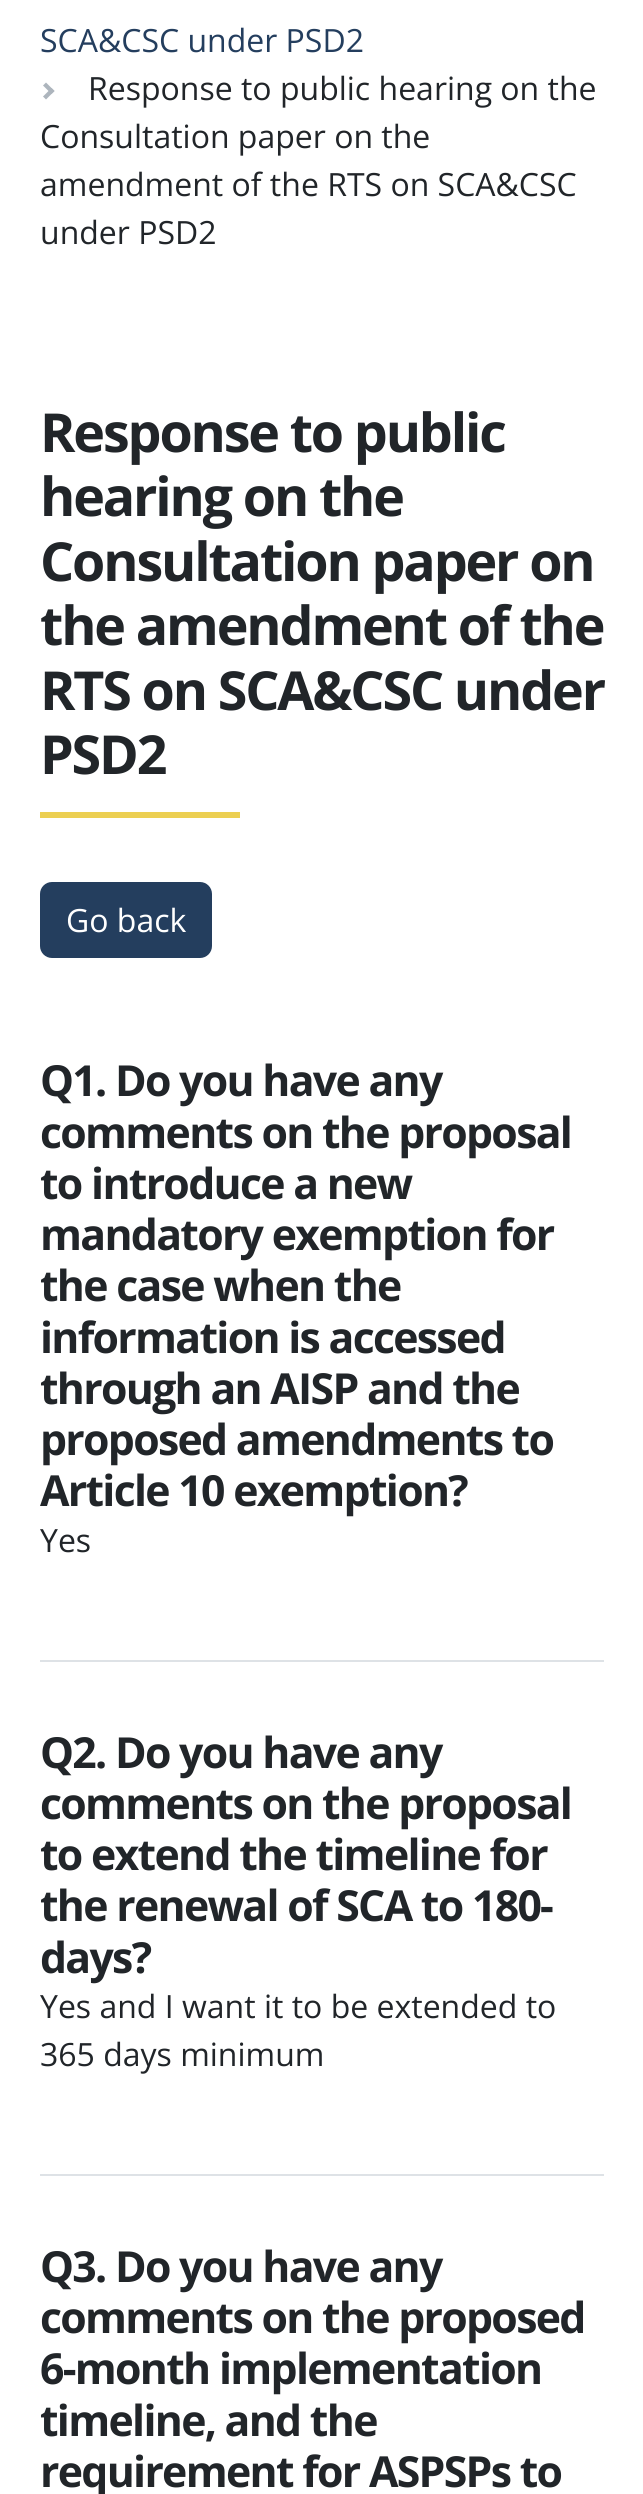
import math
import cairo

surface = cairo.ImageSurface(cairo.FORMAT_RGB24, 643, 2494)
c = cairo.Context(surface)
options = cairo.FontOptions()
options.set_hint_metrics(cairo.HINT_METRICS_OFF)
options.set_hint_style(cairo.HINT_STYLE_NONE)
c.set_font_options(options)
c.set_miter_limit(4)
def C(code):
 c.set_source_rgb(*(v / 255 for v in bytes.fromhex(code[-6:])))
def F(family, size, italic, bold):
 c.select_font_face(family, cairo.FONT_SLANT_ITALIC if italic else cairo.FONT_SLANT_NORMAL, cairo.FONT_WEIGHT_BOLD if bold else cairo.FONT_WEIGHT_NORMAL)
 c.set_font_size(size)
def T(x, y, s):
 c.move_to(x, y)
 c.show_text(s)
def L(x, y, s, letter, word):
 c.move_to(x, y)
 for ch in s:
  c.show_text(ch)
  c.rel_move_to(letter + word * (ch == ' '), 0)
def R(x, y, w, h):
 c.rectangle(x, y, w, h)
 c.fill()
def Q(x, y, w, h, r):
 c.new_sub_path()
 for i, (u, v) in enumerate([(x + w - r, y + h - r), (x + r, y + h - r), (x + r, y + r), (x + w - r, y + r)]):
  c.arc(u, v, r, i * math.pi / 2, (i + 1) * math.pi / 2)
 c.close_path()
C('ffffff')
c.paint()
F('Open Sans',32,0,0)
C('243e5e')
T(40,52,'SCA&CSC under PSD2')
C('adb5bd')
c.new_path()
c.move_to(46,82.5)
c.line_to(54.5,91)
c.line_to(51.5,94)
c.line_to(43,85.5)
c.close_path()
c.fill()
c.new_path()
c.move_to(51.5,88)
c.line_to(54.5,91)
c.line_to(46,99.5)
c.line_to(43,96.5)
c.close_path()
c.fill()
C('212529')
T(88,100,'Response to public hearing on the')
T(40,148,'Consultation paper on the')
T(40,196,'amendment of the RTS on SCA&CSC')
T(40,244,'under PSD2')
F('Open Sans',53.75,0,1)
L(40,452,'Response to public',-2.15,0)
L(40,516,'hearing on the',-2.15,0)
L(40,581,'Consultation paper on',-2.15,0)
L(40,645,'the amendment of the',-2.15,0)
L(40,710,'RTS on SCA&CSC under',-2.15,0)
L(40,774,'PSD2',-2.15,0)
C('eccf52')
R(40,812,200,6)
C('243e5e')
Q(41,883,170,74,11)
c.fill_preserve()
c.stroke()
F('Open Sans',32,0,0)
C('ffffff')
T(66,932,'Go back')
C('dee2e6')
R(40,1660,564,2)
F('Open Sans',42.75,0,1)
C('212529')
L(40,1096,'Q1. Do you have any',-1.7,0)
L(40,1148,'comments on the proposal',-1.7,0)
L(40,1199,'to introduce a new',-1.7,0)
L(40,1250,'mandatory exemption for',-1.7,0)
L(40,1301,'the case when the',-1.7,0)
L(40,1353,'information is accessed',-1.7,0)
L(40,1404,'through an AISP and the',-1.7,0)
L(40,1455,'proposed amendments to',-1.7,0)
L(40,1506,'Article 10 exemption?',-1.7,0)
F('Open Sans',32,0,0)
T(40,1552,'Yes')
C('dee2e6')
R(40,2174,564,2)
F('Open Sans',42.75,0,1)
C('212529')
L(40,1768,'Q2. Do you have any',-1.7,0)
L(40,1819,'comments on the proposal',-1.7,0)
L(40,1870,'to extend the timeline for',-1.7,0)
L(40,1921,'the renewal of SCA to 180-',-1.7,0)
L(40,1973,'days?',-1.7,0)
F('Open Sans',32,0,0)
T(40,2018,'Yes and I want it to be extended to')
T(40,2066,'365 days minimum')
F('Open Sans',42.75,0,1)
L(40,2282,'Q3. Do you have any',-1.7,0)
L(40,2333,'comments on the proposed',-1.7,0)
L(40,2384,'6-month implementation',-1.7,0)
L(40,2436,'timeline, and the',-1.7,0)
L(40,2487,'requirement for ASPSPs to',-1.7,0)
surface.write_to_png('o.png')
